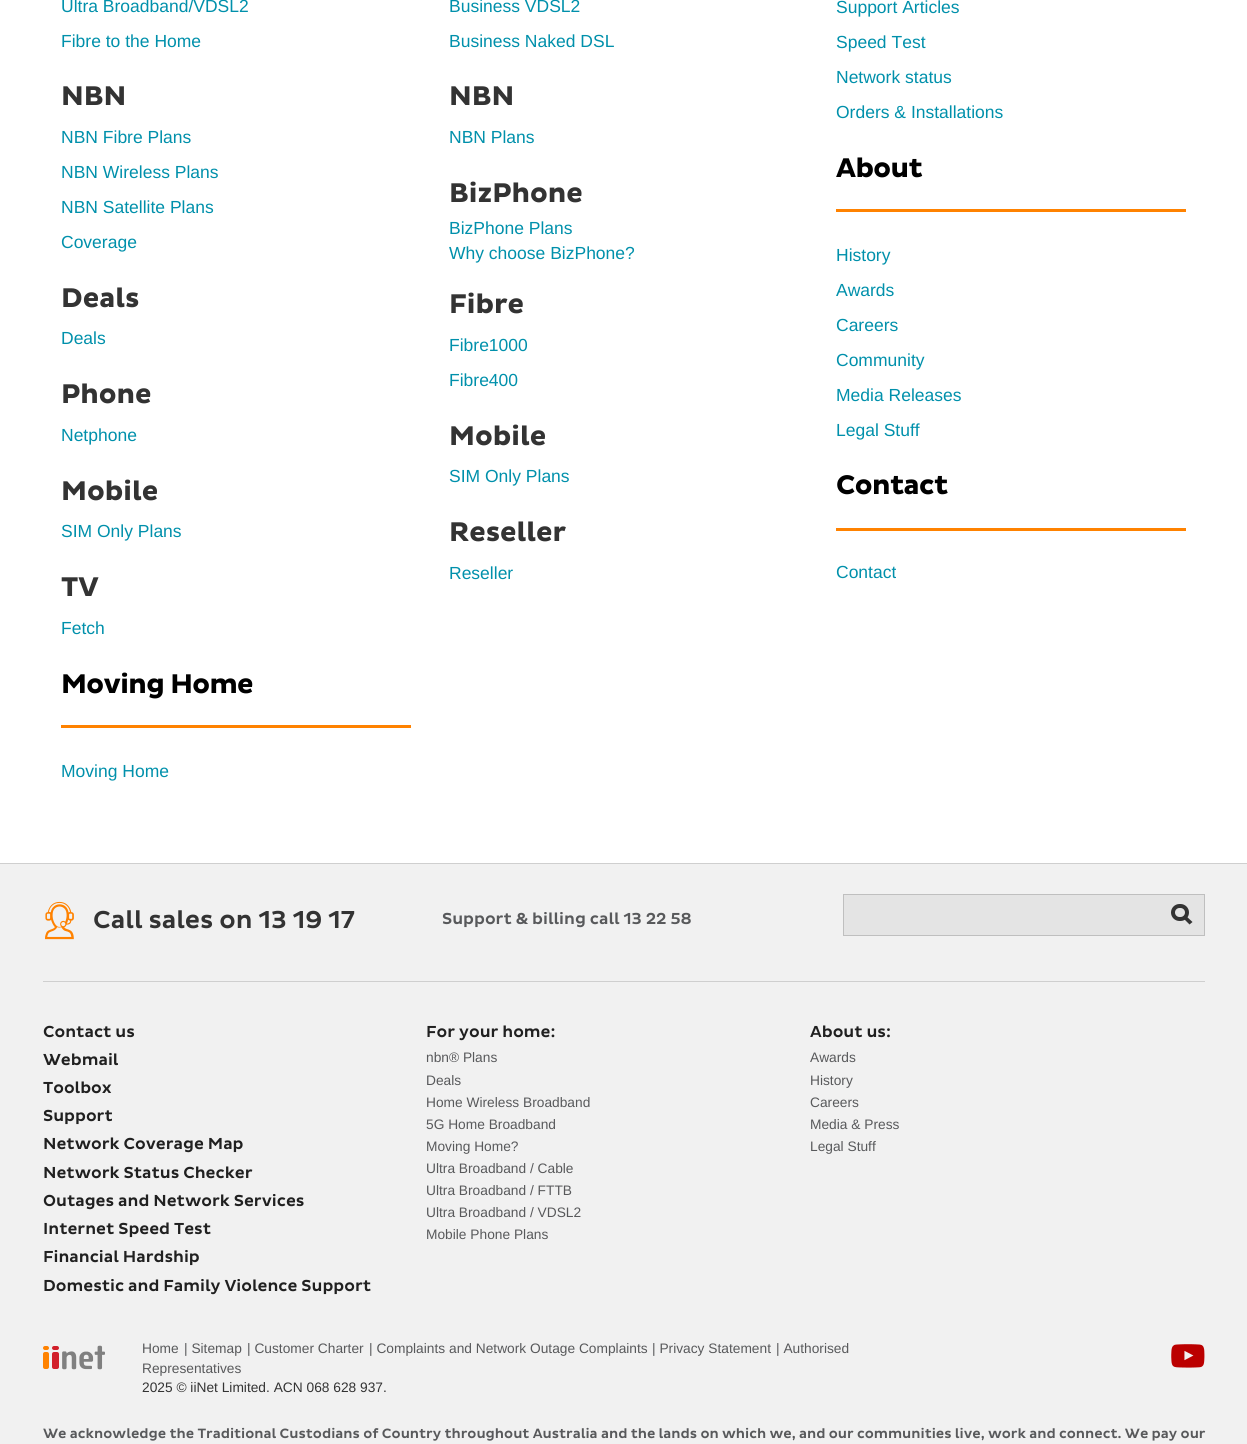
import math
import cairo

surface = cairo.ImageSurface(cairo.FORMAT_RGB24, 1247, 1444)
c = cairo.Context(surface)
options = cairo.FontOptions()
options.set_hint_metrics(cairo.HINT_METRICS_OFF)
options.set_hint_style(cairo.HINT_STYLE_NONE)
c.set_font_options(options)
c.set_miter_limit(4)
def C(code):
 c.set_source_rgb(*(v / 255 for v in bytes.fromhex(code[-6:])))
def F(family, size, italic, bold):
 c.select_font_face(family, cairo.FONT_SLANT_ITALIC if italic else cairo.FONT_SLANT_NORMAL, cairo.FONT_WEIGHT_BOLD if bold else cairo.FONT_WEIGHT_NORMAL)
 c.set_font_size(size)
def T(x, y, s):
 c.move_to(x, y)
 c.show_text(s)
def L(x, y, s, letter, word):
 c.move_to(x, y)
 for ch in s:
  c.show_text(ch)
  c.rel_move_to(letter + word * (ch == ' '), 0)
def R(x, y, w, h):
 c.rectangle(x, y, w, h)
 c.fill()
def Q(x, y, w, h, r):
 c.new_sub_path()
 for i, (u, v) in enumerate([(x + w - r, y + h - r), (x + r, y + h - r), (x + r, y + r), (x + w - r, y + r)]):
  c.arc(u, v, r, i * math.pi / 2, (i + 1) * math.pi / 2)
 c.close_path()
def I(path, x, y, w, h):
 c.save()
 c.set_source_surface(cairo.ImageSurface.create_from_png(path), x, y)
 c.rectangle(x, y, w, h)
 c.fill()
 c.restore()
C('ffffff')
c.paint()
F('Liberation Sans',17.5,0,0)
C('0090ab')
T(61,12,'Ultra Broadband/VDSL2')
T(61,47,'Fibre to the Home')
F('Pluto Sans',27.5,0,1)
C('333333')
T(61,105,'NBN')
F('Liberation Sans',17.5,0,0)
C('0090ab')
T(61,143,'NBN Fibre Plans')
T(61,178,'NBN Wireless Plans')
T(61,213,'NBN Satellite Plans')
T(61,248,'Coverage')
F('Pluto Sans',27.5,0,1)
C('333333')
T(61,307,'Deals')
F('Liberation Sans',17.5,0,0)
C('0090ab')
T(61,344,'Deals')
F('Pluto Sans',27.5,0,1)
C('333333')
T(61,403,'Phone')
F('Liberation Sans',17.5,0,0)
C('0090ab')
T(61,441,'Netphone')
F('Pluto Sans',27.5,0,1)
C('333333')
T(61,500,'Mobile')
F('Liberation Sans',17.5,0,0)
C('0090ab')
T(61,537,'SIM Only Plans')
F('Pluto Sans',27.5,0,1)
C('333333')
T(61,596,'TV')
F('Liberation Sans',17.5,0,0)
C('0090ab')
T(61,634,'Fetch')
F('Pluto Sans',27.5,0,1)
C('000000')
L(61,693,'Moving Home',-.6,0)
C('ff8200')
R(61,725,350,3)
F('Liberation Sans',17.5,0,0)
C('0090ab')
T(61,777,'Moving Home')
T(449,12,'Business VDSL2')
T(449,47,'Business Naked DSL')
F('Pluto Sans',27.5,0,1)
C('333333')
T(449,105,'NBN')
F('Liberation Sans',17.5,0,0)
C('0090ab')
T(449,143,'NBN Plans')
F('Pluto Sans',27.5,0,1)
C('333333')
T(449,202,'BizPhone')
F('Liberation Sans',17.5,0,0)
C('0090ab')
T(449,234,'BizPhone Plans')
T(449,259,'Why choose BizPhone?')
F('Pluto Sans',27.5,0,1)
C('333333')
T(449,313,'Fibre')
F('Liberation Sans',17.5,0,0)
C('0090ab')
T(449,351,'Fibre1000')
T(449,386,'Fibre400')
F('Pluto Sans',27.5,0,1)
C('333333')
T(449,445,'Mobile')
F('Liberation Sans',17.5,0,0)
C('0090ab')
T(449,482,'SIM Only Plans')
F('Pluto Sans',27.5,0,1)
C('333333')
T(449,541,'Reseller')
F('Liberation Sans',17.5,0,0)
C('0090ab')
T(449,579,'Reseller')
T(836,13,'Support Articles')
T(836,48,'Speed Test')
T(836,83,'Network status')
T(836,118,'Orders & Installations')
F('Pluto Sans',27.5,0,1)
C('000000')
L(836,177,'About',-.6,0)
C('ff8200')
R(836,209,350,3)
F('Liberation Sans',17.5,0,0)
C('0090ab')
T(836,261,'History')
T(836,296,'Awards')
T(836,331,'Careers')
T(836,366,'Community')
T(836,401,'Media Releases')
T(836,436,'Legal Stuff')
F('Pluto Sans',27.5,0,1)
C('000000')
L(836,494,'Contact',-.6,0)
C('ff8200')
R(836,528,350,3)
F('Liberation Sans',17.5,0,0)
C('0090ab')
T(836,578,'Contact')
C('f1f1f1')
R(0,864,1247,580)
C('cfcfcf')
R(0,863,1247,1)
R(43,981,1162,1)
I('1.png',45,901,29,39)
F('PlutoSans Medium',25,0,0)
C('333333')
T(93,928,'Call sales on 13 19 17')
F('PlutoSans Medium',16.25,0,0)
C('58595b')
T(442,924,'Support & billing call 13 22 58')
C('e4e4e4')
R(844,895,360,40)
C('bfbfbf')
R(843,894,362,1)
R(1204,894,1,42)
R(843,935,362,1)
Q(1173,906,14,13,6.5)
C('333333')
c.set_line_width(4)
c.stroke()
c.new_path()
c.move_to(1185,915)
c.line_to(1192.5,922)
c.line_to(1189.5,924.5)
c.line_to(1182.5,917.5)
c.close_path()
c.fill()
C('bfbfbf')
R(843,894,1,42)
C('202020')
T(43,1037,'Contact us')
T(426,1037,'For your home:')
F('Liberation Sans',13.75,0,0)
C('58595b')
T(426,1062,'nbn® Plans')
T(426,1085,'Deals')
T(426,1107,'Home Wireless Broadband')
T(426,1129,'5G Home Broadband')
T(426,1151,'Moving Home?')
T(426,1173,'Ultra Broadband / Cable')
T(426,1195,'Ultra Broadband / FTTB')
T(426,1217,'Ultra Broadband / VDSL2')
T(426,1239,'Mobile Phone Plans')
F('PlutoSans Medium',16.25,0,0)
C('202020')
T(810,1037,'About us:')
F('Liberation Sans',13.75,0,0)
C('58595b')
T(810,1062,'Awards')
T(810,1085,'History')
T(810,1107,'Careers')
T(810,1129,'Media & Press')
T(810,1151,'Legal Stuff')
F('PlutoSans Medium',16.25,0,0)
C('202020')
T(43,1065,'Webmail')
T(43,1093,'Toolbox')
T(43,1121,'Support')
T(43,1149,'Network Coverage Map')
T(43,1178,'Network Status Checker')
T(43,1206,'Outages and Network Services')
T(43,1234,'Internet Speed Test')
T(43,1262,'Financial Hardship')
T(43,1291,'Domestic and Family Violence Support')
I('2.png',43,1345,62,25)
F('Liberation Sans',13.75,0,0)
C('58595b')
T(142,1353,'Home')
T(184,1353,'| Sitemap')
T(247,1353,'| Customer Charter')
T(369,1353,'| Complaints and Network Outage Complaints')
T(652,1353,'| Privacy Statement')
T(776,1353,'| Authorised')
T(142,1373,'Representatives')
C('333333')
T(142,1392,'2025 © iiNet Limited. ACN 068 628 937.')
I('3.png',1171,1344,34,24)
F('PlutoSans Medium',13.75,0,0)
C('58595b')
T(43,1438,'We acknowledge the Traditional Custodians of Country throughout Australia and the lands on which we, and our communities live, work and connect. We pay our')
surface.write_to_png('o.png')
